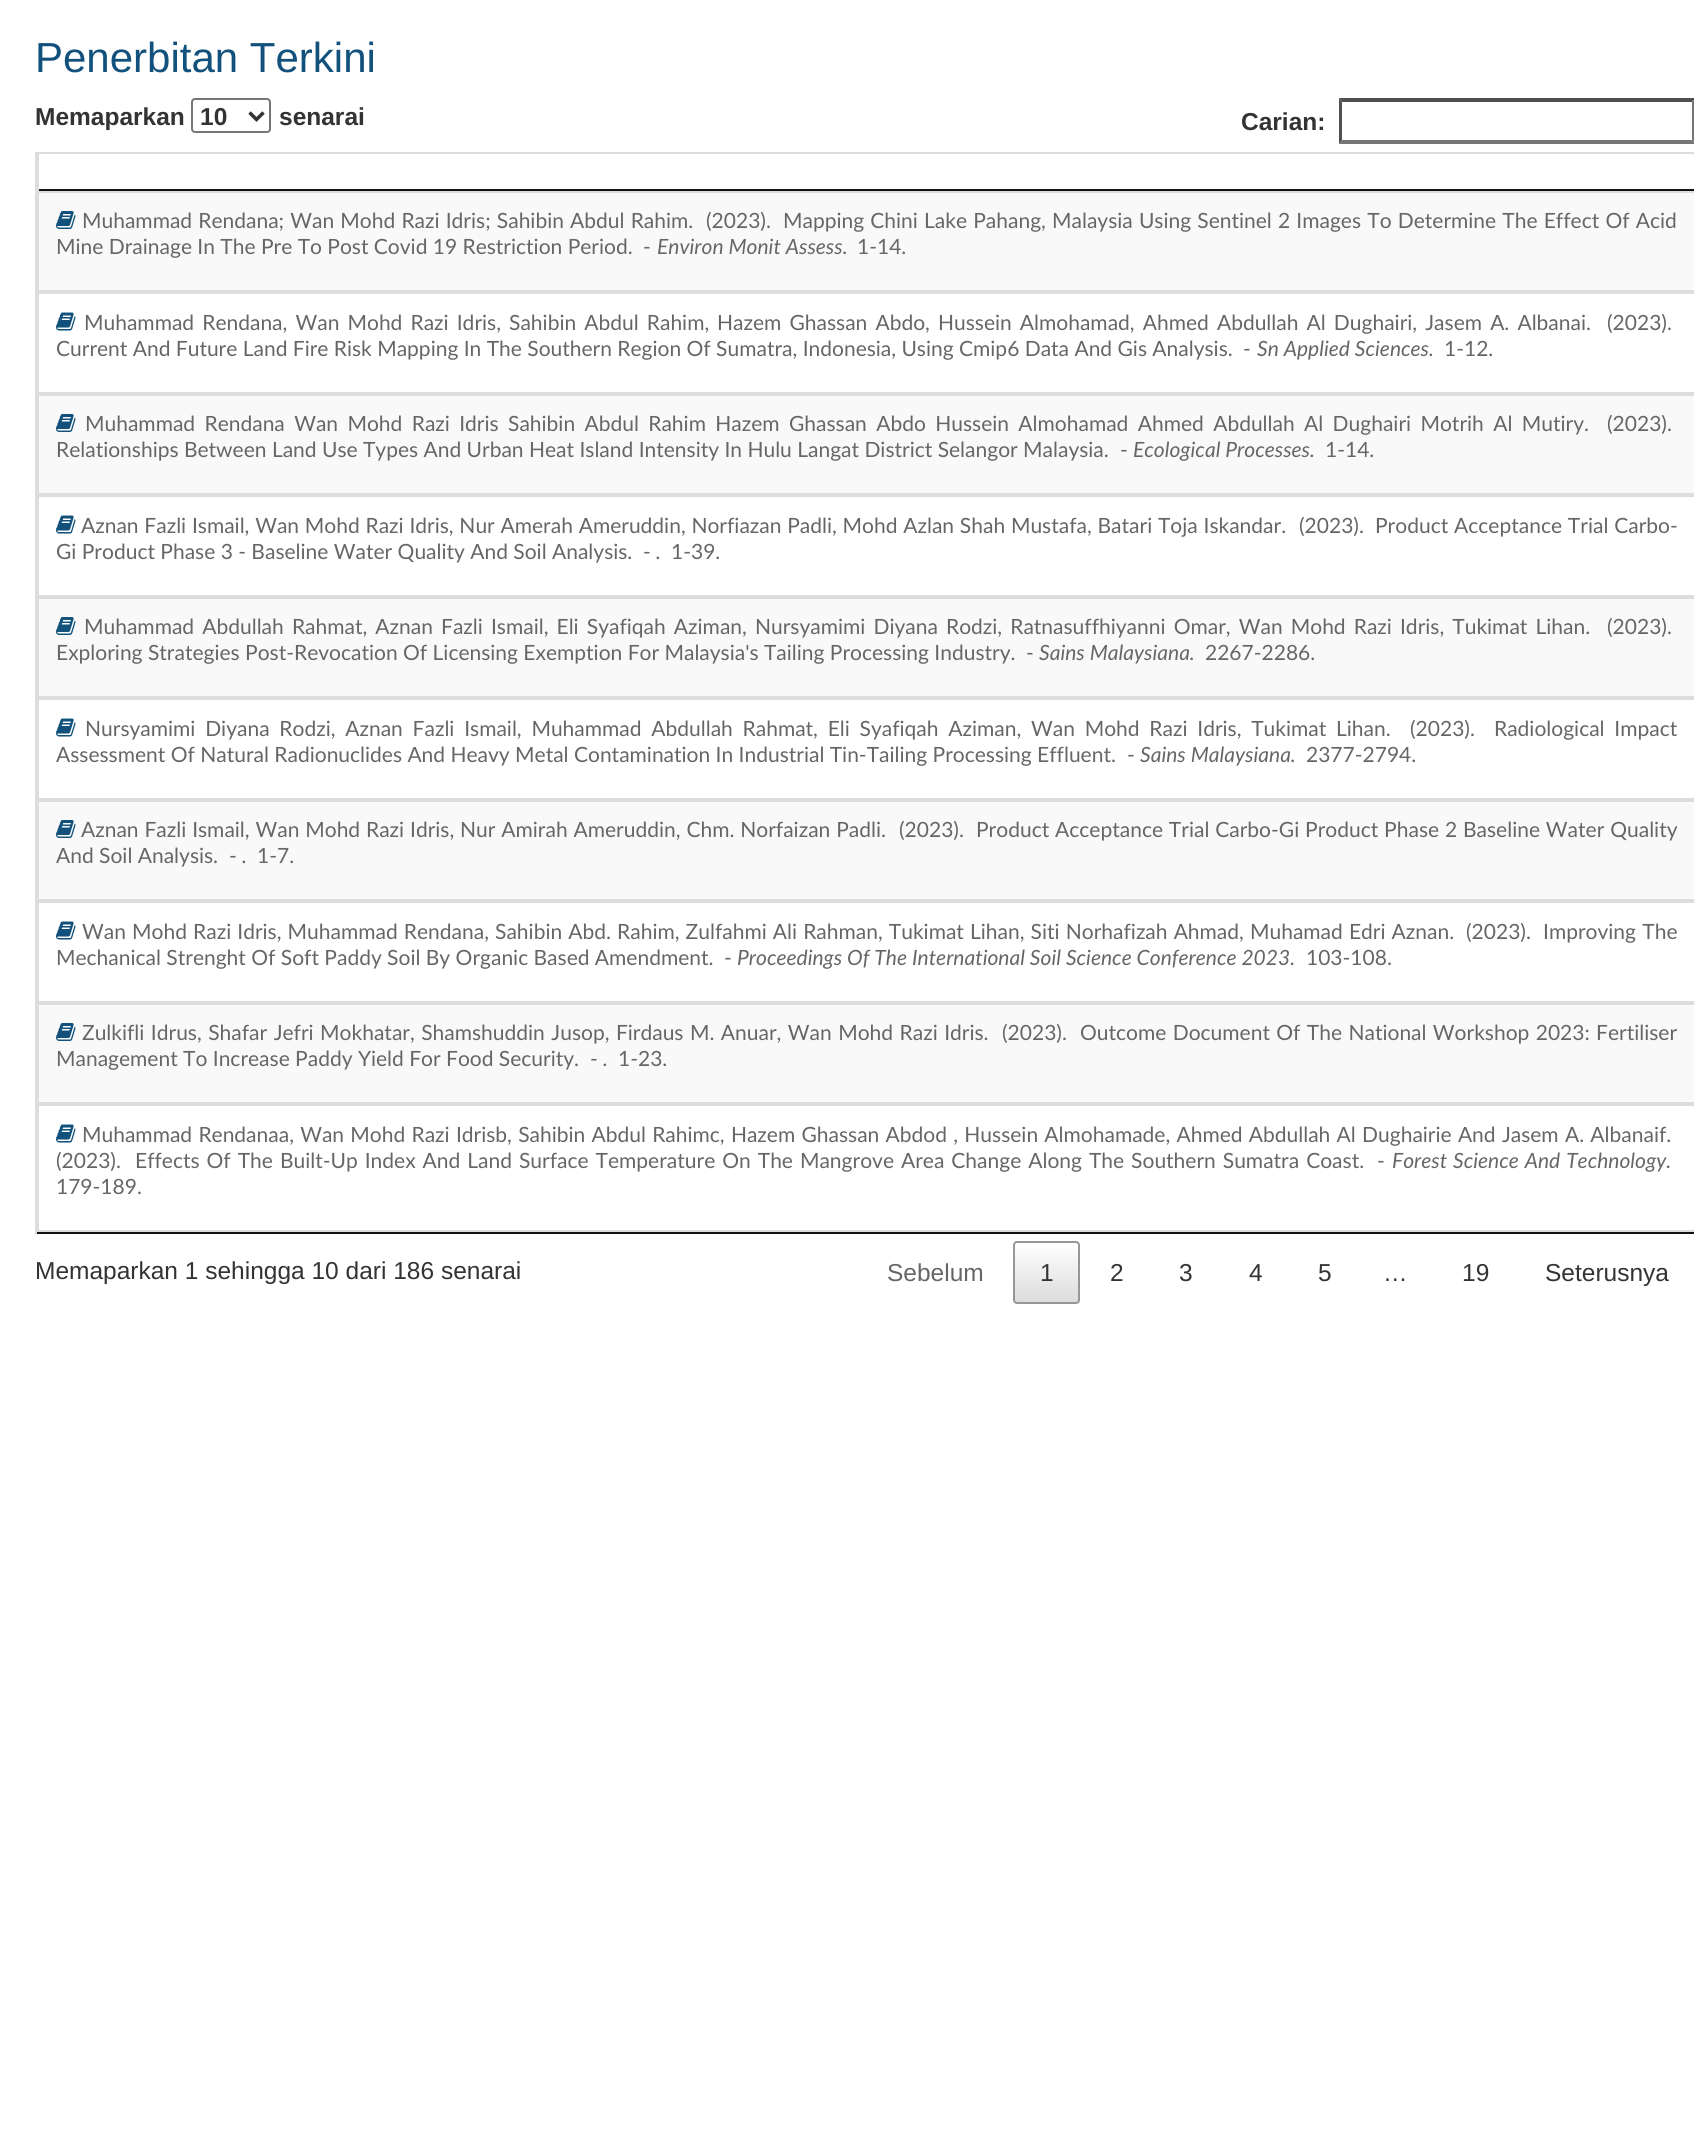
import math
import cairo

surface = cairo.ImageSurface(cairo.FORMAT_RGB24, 1694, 2132)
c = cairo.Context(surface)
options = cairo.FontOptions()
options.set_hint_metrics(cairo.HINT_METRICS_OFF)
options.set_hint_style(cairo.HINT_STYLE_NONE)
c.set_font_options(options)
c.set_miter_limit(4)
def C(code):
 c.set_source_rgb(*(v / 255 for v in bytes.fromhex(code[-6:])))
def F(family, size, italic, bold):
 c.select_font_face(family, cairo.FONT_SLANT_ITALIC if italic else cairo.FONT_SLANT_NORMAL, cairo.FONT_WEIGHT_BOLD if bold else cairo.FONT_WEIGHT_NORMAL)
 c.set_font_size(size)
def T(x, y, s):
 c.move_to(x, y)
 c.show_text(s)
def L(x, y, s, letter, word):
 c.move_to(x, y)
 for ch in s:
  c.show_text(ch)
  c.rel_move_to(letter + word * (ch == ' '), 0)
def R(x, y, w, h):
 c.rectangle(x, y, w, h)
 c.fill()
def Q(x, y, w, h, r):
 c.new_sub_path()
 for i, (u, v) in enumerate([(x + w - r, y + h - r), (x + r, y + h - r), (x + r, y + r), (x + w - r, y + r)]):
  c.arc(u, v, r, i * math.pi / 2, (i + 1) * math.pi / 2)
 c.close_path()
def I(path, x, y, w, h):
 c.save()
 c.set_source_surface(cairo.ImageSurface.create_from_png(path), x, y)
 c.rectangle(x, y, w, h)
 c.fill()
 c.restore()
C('ffffff')
c.paint()
F('Liberation Sans',42,0,0)
C('11517c')
T(35,72,'Penerbitan Terkini')
F('Liberation Sans',24.5,0,1)
C('333333')
T(35,125,'Memaparkan')
Q(192,99,78,33,3)
C('767676')
c.stroke()
c.new_path()
c.move_to(249.5,112.5)
c.line_to(256.5,119.5)
c.line_to(263.5,112.5)
C('333333')
c.set_line_width(3.5)
c.stroke()
T(200,125,'10')
T(279,125,'senarai')
T(1241,130,'Carian:')
C('4f4f4f')
c.new_path()
c.move_to(1339,98)
c.line_to(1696,98)
c.line_to(1692,102)
c.line_to(1342,102)
c.close_path()
c.fill()
C('767676')
c.new_path()
c.move_to(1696,98)
c.line_to(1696,144)
c.line_to(1692,140)
c.line_to(1692,102)
c.close_path()
c.fill()
c.new_path()
c.move_to(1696,144)
c.line_to(1339,144)
c.line_to(1342,140)
c.line_to(1692,140)
c.close_path()
c.fill()
C('4f4f4f')
c.new_path()
c.move_to(1339,144)
c.line_to(1339,98)
c.line_to(1342,102)
c.line_to(1342,140)
c.close_path()
c.fill()
C('dddddd')
R(35,152,1659,2)
C('111111')
R(35,1232,1659,2)
C('dddddd')
R(35,152,2,1082)
C('111111')
R(37,189,1657,2)
C('dddddd')
R(37,154,2,37)
C('f9f9f9')
c.rectangle(38,192,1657,99)
c.fill_preserve()
C('dddddd')
c.set_line_width(2)
c.stroke()
I('1.png',56,211,20,18)
F('Lato',21,0,0)
C('666666')
L(82,228,'Muhammad Rendana; Wan Mohd Razi Idris; Sahibin Abdul Rahim.',0,.8)
T(706,228,'(2023).')
L(783,228,'Mapping Chini Lake Pahang, Malaysia Using Sentinel 2 Images To Determine The Effect Of Acid',0,.8)
T(56,254,'Mine Drainage In The Pre To Post Covid 19 Restriction Period.')
T(643,254,'-')
F('Lato',21,1,0)
T(657,254,'Environ Monit Assess.')
F('Lato',21,0,0)
T(857,254,'1-14.')
c.rectangle(38,293,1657,100)
C('dddddd')
c.stroke()
I('2.png',56,312,20,19)
C('666666')
L(84,330,'Muhammad Rendana, Wan Mohd Razi Idris, Sahibin Abdul Rahim,',0,2.75)
L(717,330,'Hazem Ghassan Abdo, Hussein Almohamad, Ahmed Abdullah Al Dughairi, Jasem A. Albanai.',0,2.75)
T(1607,330,'(2023).')
T(56,356,'Current And Future Land Fire Risk Mapping In The Southern Region Of Sumatra, Indonesia, Using Cmip6 Data And Gis Analysis.')
T(1243,356,'-')
F('Lato',21,1,0)
T(1257,356,'Sn Applied Sciences.')
F('Lato',21,0,0)
T(1444,356,'1-12.')
C('f9f9f9')
c.rectangle(38,395,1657,99)
c.fill_preserve()
C('dddddd')
c.stroke()
I('3.png',56,414,20,18)
C('666666')
L(85,431,'Muhammad Rendana Wan Mohd Razi Idris Sahibin Abdul Rahim Hazem Ghassan Abdo Hussein Almohamad Ahmed Abdullah Al Dughairi Motrih Al Mutiry.',0,4)
T(1607,431,'(2023).')
T(56,457,'Relationships Between Land Use Types And Urban Heat Island Intensity In Hulu Langat District Selangor Malaysia.')
T(1120,457,'-')
F('Lato',21,1,0)
T(1133,457,'Ecological Processes.')
F('Lato',21,0,0)
T(1325,457,'1-14.')
c.rectangle(38,496,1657,100)
C('dddddd')
c.stroke()
I('2.png',56,515,20,19)
C('666666')
L(81,533,'Aznan Fazli Ismail, Wan Mohd Razi Idris, Nur Amerah Ameruddin, Norfiazan Padli, Mohd Azlan Shah Mustafa, Batari Toja Iskandar.',0,.4)
T(1299,533,'(2023).')
L(1375,533,'Product Acceptance Trial Carbo-',0,.5)
T(56,559,'Gi Product Phase 3 - Baseline Water Quality And Soil Analysis.')
T(643,559,'-')
T(671,559,'1-39.')
F('Lato',21,1,0)
T(656,559,'.')
C('f9f9f9')
c.rectangle(38,598,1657,99)
c.fill_preserve()
C('dddddd')
c.stroke()
I('3.png',56,617,20,18)
F('Lato',21,0,0)
C('666666')
L(84,634,'Muhammad Abdullah Rahmat, Aznan Fazli Ismail, Eli Syafiqah Aziman, Nursyamimi Diyana Rodzi, Ratnasuffhiyanni Omar, Wan Mohd Razi Idris, Tukimat Lihan.',0,2.75)
T(1607,634,'(2023).')
T(56,660,'Exploring Strategies Post-Revocation Of Licensing Exemption For Malaysia\'s Tailing Processing Industry.')
T(1026,660,'-')
F('Lato',21,1,0)
T(1039,660,'Sains Malaysiana.')
F('Lato',21,0,0)
T(1205,660,'2267-2286.')
c.rectangle(38,699,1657,100)
C('dddddd')
c.stroke()
I('2.png',56,718,20,19)
C('666666')
L(85,736,'Nursyamimi Diyana Rodzi, Aznan Fazli Ismail, Muhammad Abdullah Rahmat, Eli Syafiqah Aziman, Wan Mohd Razi Idris, Tukimat Lihan.',0,4.4)
T(1410,736,'(2023).')
L(1494,736,'Radiological Impact',0,4.4)
T(56,762,'Assessment Of Natural Radionuclides And Heavy Metal Contamination In Industrial Tin-Tailing Processing Effluent.')
T(1127,762,'-')
F('Lato',21,1,0)
T(1140,762,'Sains Malaysiana.')
F('Lato',21,0,0)
T(1306,762,'2377-2794.')
C('f9f9f9')
c.rectangle(38,801,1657,99)
c.fill_preserve()
C('dddddd')
c.stroke()
I('3.png',56,820,20,18)
C('666666')
L(81,837,'Aznan Fazli Ismail, Wan Mohd Razi Idris, Nur Amirah Ameruddin, Chm. Norfaizan Padli.',0,.5)
T(899,837,'(2023).')
L(976,837,'Product Acceptance Trial Carbo-Gi Product Phase 2 Baseline Water Quality',0,.5)
T(56,863,'And Soil Analysis.')
T(229,863,'-')
T(257,863,'1-7.')
F('Lato',21,1,0)
T(242,863,'.')
c.rectangle(38,902,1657,100)
C('dddddd')
c.stroke()
I('4.png',56,921,20,19)
F('Lato',21,0,0)
C('666666')
L(82,939,'Wan Mohd Razi Idris, Muhammad Rendana, Sahibin Abd. Rahim, Zulfahmi Ali Rahman, Tukimat Lihan, Siti Norhafizah Ahmad, Muhamad Edri Aznan.',0,.75)
T(1466,939,'(2023).')
L(1543,939,'Improving The',0,1)
T(56,965,'Mechanical Strenght Of Soft Paddy Soil By Organic Based Amendment.')
T(724,965,'-')
F('Lato',21,1,0)
T(737,965,'Proceedings Of The International Soil Science Conference 2023.')
F('Lato',21,0,0)
T(1306,965,'103-108.')
C('f9f9f9')
c.rectangle(38,1004,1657,99)
c.fill_preserve()
C('dddddd')
c.stroke()
I('3.png',56,1023,20,18)
C('666666')
L(82,1040,'Zulkifli Idrus, Shafar Jefri Mokhatar, Shamshuddin Jusop, Firdaus M. Anuar, Wan Mohd Razi Idris.',0,1.1)
T(1002,1040,'(2023).')
L(1080,1040,'Outcome Document Of The National Workshop 2023: Fertiliser',0,1)
T(56,1066,'Management To Increase Paddy Yield For Food Security.')
T(590,1066,'-')
T(618,1066,'1-23.')
F('Lato',21,1,0)
T(603,1066,'.')
c.rectangle(38,1105,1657,126)
C('dddddd')
c.stroke()
I('2.png',56,1124,20,19)
F('Lato',21,0,0)
C('666666')
L(82,1142,'Muhammad Rendanaa, Wan Mohd Razi Idrisb, Sahibin Abdul Rahimc, Hazem Ghassan Abdod , Hussein Almohamade, Ahmed Abdullah Al Dughairie And Jasem A. Albanaif.',0,.9)
T(56,1168,'(2023).')
L(135,1168,'Effects Of The Built-Up Index And Land Surface Temperature On The Mangrove Area Change Along The Southern Sumatra Coast.',0,1.6)
T(1377,1168,'-')
F('Lato',21,1,0)
L(1392,1168,'Forest Science And Technology.',0,1)
F('Lato',21,0,0)
T(56,1194,'179-189.')
F('Liberation Sans',24.5,0,0)
C('333333')
T(35,1279,'Memaparkan 1 sehingga 10 dari 186 senarai')
C('666666')
T(887,1281,'Sebelum')
c.save()
Q(1013,1241,67,63,4)
c.clip()
gradient = cairo.LinearGradient(1047,1243,1047,1302)
gradient.add_color_stop_rgba(0,1,1,1,1)
gradient.add_color_stop_rgba(1,0.863,0.863,0.863,1)
c.set_source(gradient)
R(1013,1243,67,59)
c.restore()
Q(1014,1242,65,61,3)
C('979797')
c.stroke()
C('333333')
T(1040,1281,'1')
T(1110,1281,'2')
T(1179,1281,'3')
T(1249,1281,'4')
T(1318,1281,'5')
T(1383,1281,'…')
T(1462,1281,'19')
T(1545,1281,'Seterusnya')
surface.write_to_png('o.png')
